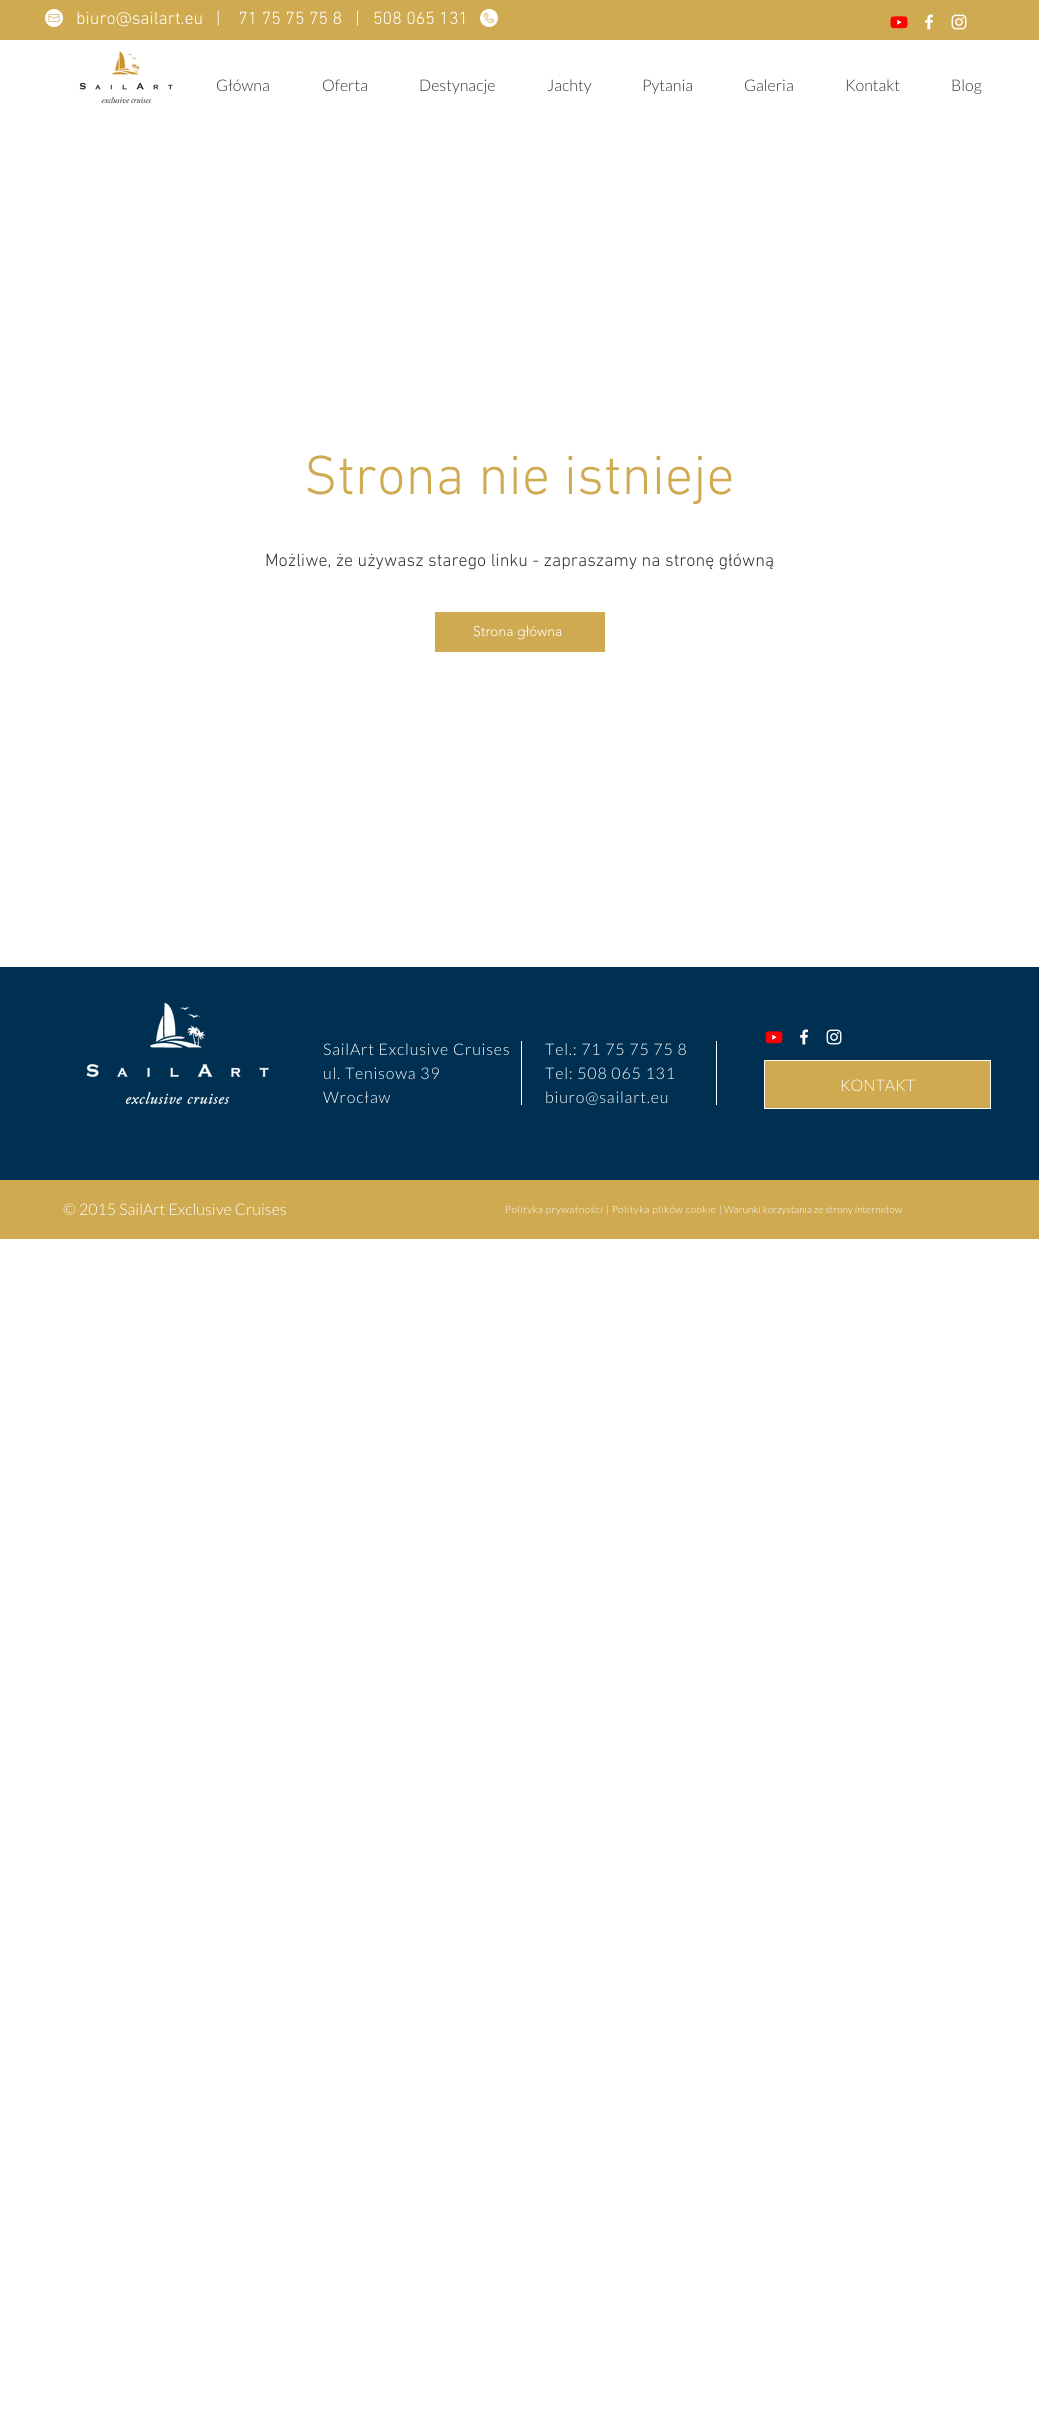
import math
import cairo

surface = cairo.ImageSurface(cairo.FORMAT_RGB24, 1039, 2428)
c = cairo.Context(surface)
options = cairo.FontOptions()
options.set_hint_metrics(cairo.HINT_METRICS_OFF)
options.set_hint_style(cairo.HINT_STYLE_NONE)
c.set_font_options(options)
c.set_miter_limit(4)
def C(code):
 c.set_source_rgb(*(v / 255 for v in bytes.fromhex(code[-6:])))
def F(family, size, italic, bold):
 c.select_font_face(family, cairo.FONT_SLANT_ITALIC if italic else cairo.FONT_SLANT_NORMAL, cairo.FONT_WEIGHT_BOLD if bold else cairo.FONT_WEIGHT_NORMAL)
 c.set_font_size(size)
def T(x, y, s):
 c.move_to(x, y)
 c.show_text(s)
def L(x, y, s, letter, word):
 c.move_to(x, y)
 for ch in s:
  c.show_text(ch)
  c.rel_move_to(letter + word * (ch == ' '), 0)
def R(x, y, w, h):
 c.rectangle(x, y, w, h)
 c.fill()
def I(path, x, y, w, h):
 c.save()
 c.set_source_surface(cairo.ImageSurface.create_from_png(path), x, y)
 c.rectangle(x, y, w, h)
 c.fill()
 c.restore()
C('ffffff')
c.paint()
C('cfaa50')
R(0,0,1039,40)
I('1.png',45,9,18,18)
F('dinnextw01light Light',18,0,0)
C('ffffff')
T(76,24,'biuro@sailart.eu')
T(216,24,'|    71 75 75 75 8   |   508 065 131')
I('2.png',480,9,18,18)
I('3.png',890,16,18,13)
I('4.png',925,14,9,16)
I('5.png',951,14,16,16)
I('6.png',79,51,94,53)
F('Lato Light',16,0,0)
C('333333')
T(216,91,'Główna')
T(322,91,'Oferta')
T(419,91,'Destynacje')
T(547,91,'Jachty')
T(642,91,'Pytania')
T(744,91,'Galeria')
T(845,91,'Kontakt')
T(951,91,'Blog')
F('dinnextw01light Light',56,0,0)
C('cfaa50')
T(304,494,'Strona nie istnieje')
F('dinnextw01light Light',18,0,0)
C('333333')
T(265,566,'Możliwe, że używasz starego linku - zapraszamy na stronę główną')
C('cfaa50')
R(435,612,170,40)
F('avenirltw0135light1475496 Light',14,0,0)
C('ffffff')
T(473,636,'Strona główna')
C('003051')
R(0,967,1039,213)
I('7.png',86,1002,183,102)
I('8.png',765,1031,18,13)
I('9.png',800,1029,9,16)
I('10.png',826,1029,16,16)
F('Lato Light',16,0,0)
C('ffffff')
L(323,1055,'SailArt Exclusive Cruises',.8,0)
L(323,1079,'ul. Tenisowa 39',.8,0)
L(323,1103,'Wrocław',.8,0)
R(521,1041,1,64)
L(545,1055,'Tel.: 71 75 75 75 8',.8,0)
L(545,1079,'Tel: 508 065 131',.8,0)
L(545,1103,'biuro@sailart.eu',.8,0)
R(716,1041,1,64)
C('cfaa50')
c.rectangle(764.5,1060.5,226,48)
c.fill_preserve()
C('fbfbfb')
c.set_line_width(1)
c.stroke()
C('ffffff')
T(840,1091,'KONTAKT')
C('cfaa50')
R(0,1180,1039,59)
C('ffffff')
T(63,1215,'© 2015 SailArt Exclusive Cruises')
F('Lato Light',10,0,0)
L(505,1213,'Polityka prywatności | Polityka plików cookie |',.5,0)
T(724,1213,'Warunki korzystania ze strony internetow')
surface.write_to_png('o.png')
